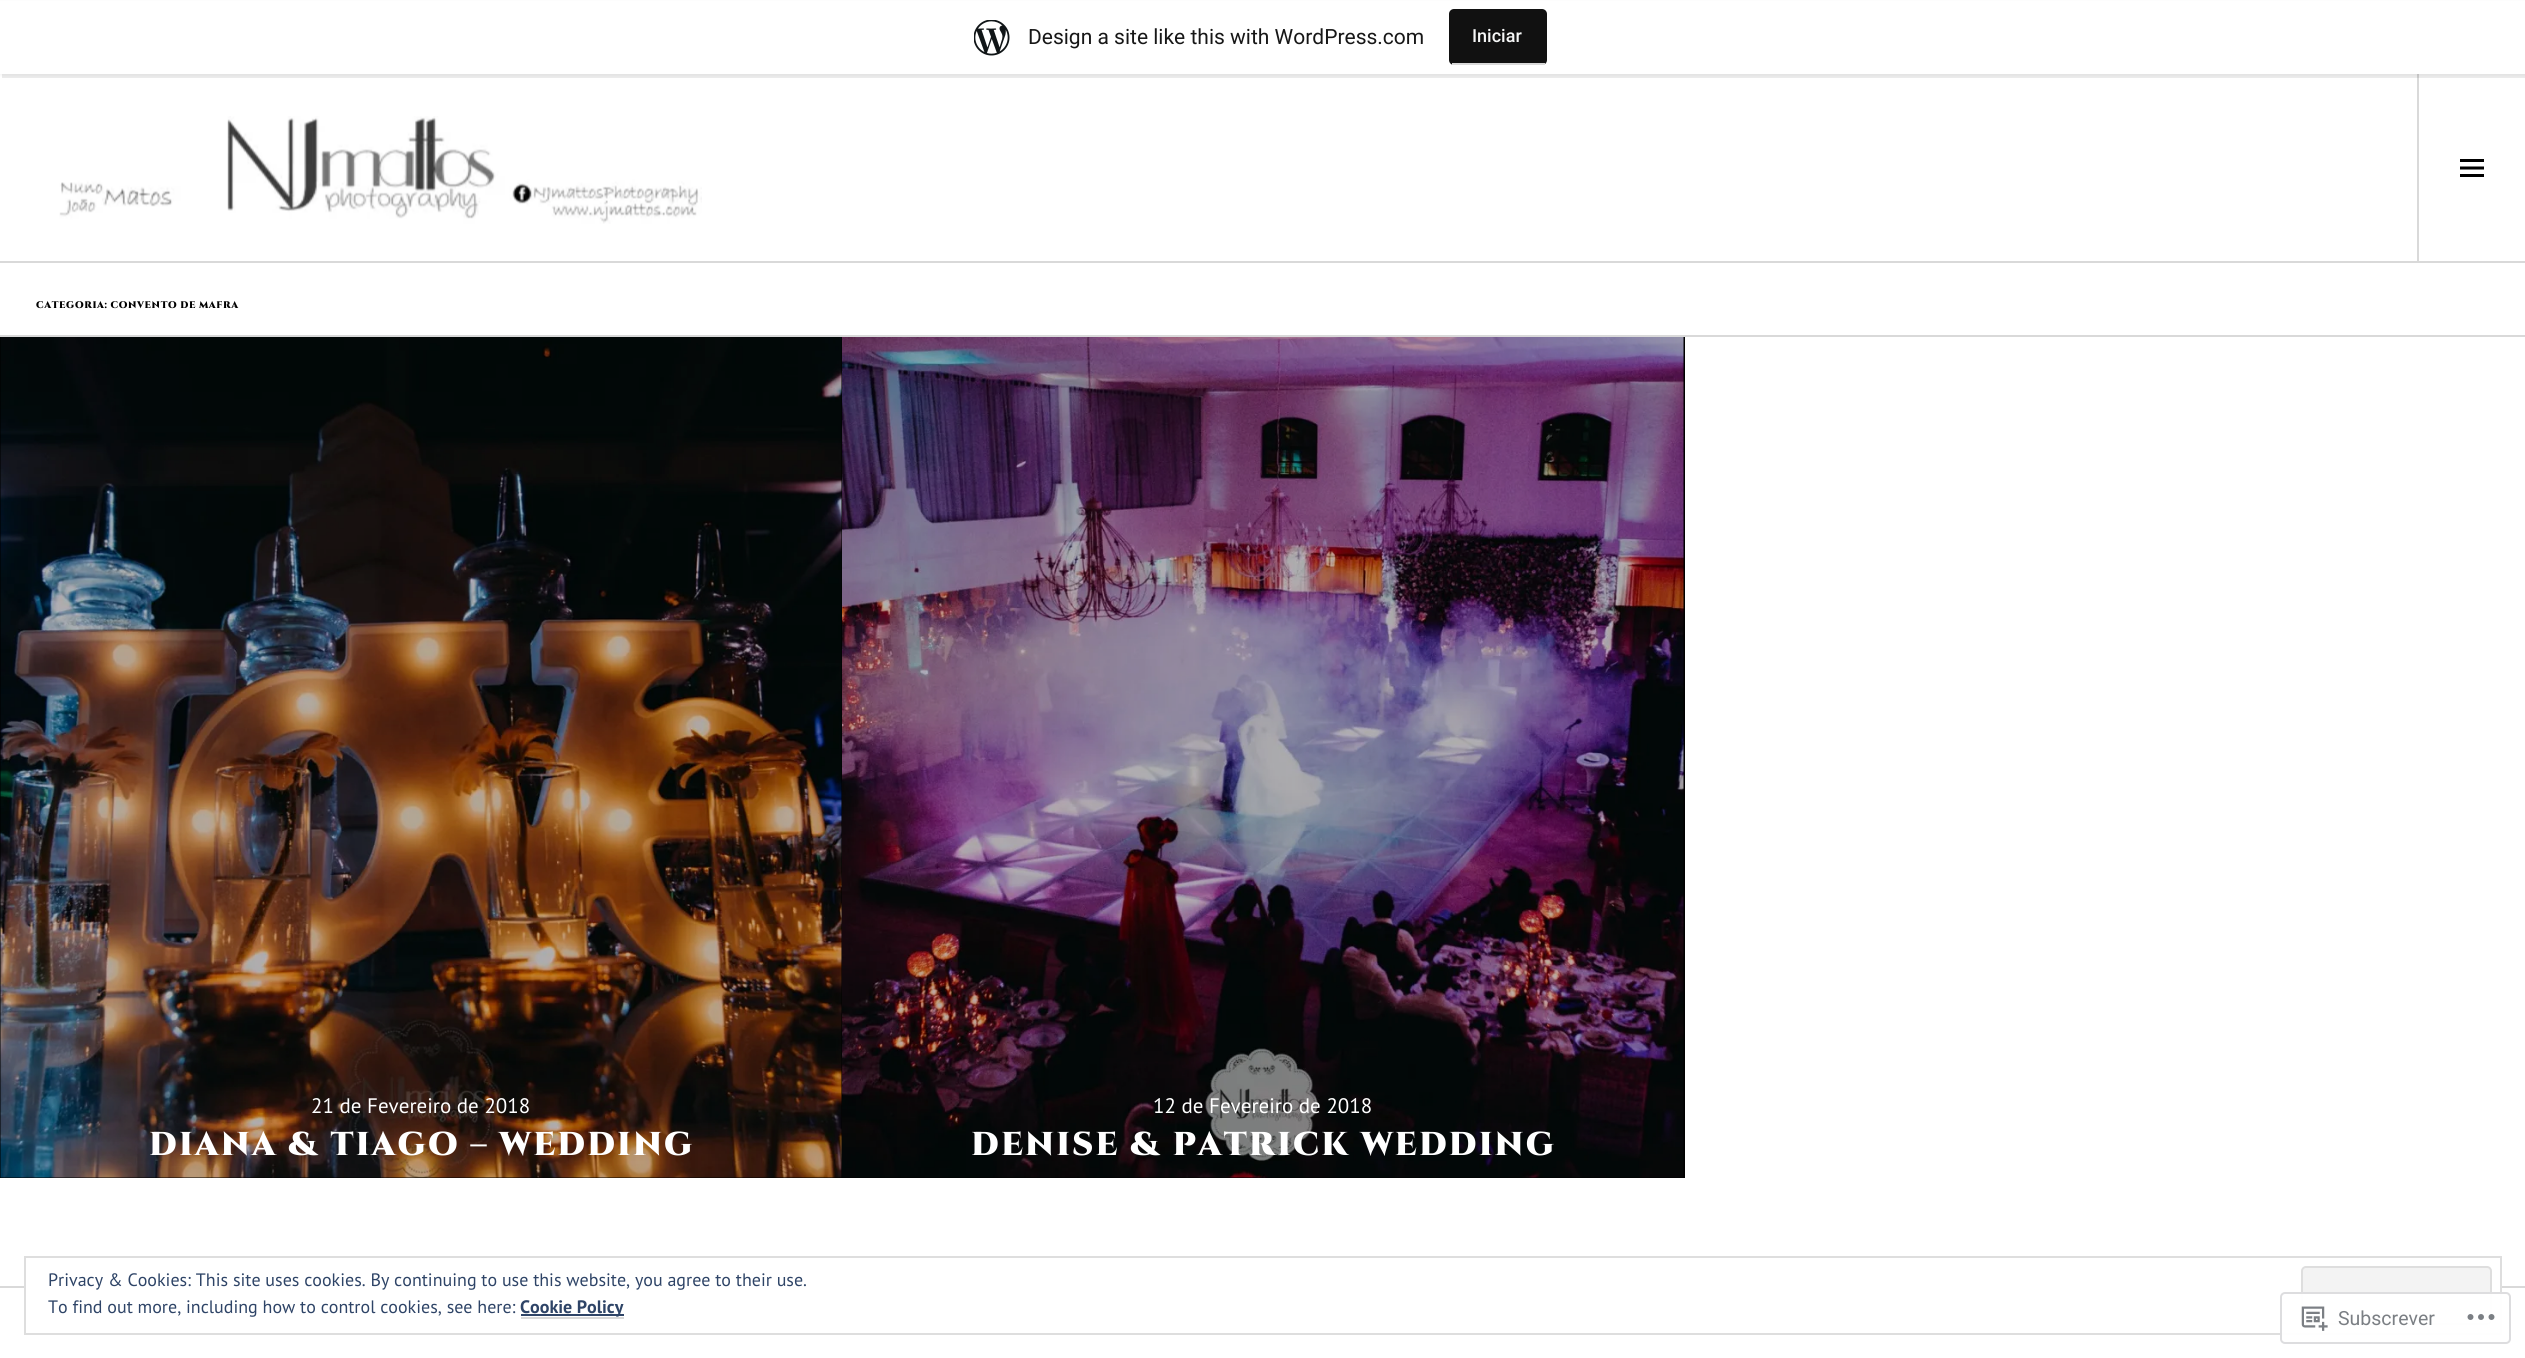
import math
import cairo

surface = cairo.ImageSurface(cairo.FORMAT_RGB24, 2525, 1358)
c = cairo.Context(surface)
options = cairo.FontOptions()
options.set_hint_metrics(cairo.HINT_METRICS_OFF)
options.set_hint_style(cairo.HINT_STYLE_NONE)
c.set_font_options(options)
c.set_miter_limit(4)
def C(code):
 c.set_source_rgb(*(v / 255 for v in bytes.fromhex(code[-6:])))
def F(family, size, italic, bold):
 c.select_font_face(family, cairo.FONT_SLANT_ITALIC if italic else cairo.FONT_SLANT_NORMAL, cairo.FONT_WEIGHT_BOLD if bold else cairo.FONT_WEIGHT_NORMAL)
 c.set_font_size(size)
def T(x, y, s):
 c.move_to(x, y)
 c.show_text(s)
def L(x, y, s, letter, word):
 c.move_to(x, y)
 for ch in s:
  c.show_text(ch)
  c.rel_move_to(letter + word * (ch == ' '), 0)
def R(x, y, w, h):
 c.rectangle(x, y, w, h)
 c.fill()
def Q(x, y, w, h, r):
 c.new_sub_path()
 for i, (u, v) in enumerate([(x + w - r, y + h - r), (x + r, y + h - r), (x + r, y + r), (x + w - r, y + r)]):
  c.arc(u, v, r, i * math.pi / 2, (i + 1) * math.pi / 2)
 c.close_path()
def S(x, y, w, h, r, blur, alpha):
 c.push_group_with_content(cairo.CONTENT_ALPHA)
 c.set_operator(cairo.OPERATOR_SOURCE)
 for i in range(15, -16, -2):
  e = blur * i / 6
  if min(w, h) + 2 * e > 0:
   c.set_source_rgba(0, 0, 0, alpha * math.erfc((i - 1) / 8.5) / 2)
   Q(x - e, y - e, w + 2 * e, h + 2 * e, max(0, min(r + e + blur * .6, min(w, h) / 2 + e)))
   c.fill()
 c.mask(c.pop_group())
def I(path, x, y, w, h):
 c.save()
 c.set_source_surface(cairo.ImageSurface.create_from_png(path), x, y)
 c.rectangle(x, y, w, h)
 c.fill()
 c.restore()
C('ffffff')
c.paint()
C('d9d9d9')
R(2417,74,2,187)
C('000000')
S(0,2,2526,73,0,1.5,.05)
c.set_source_rgba(0,0,0,0.08)
c.new_path()
c.move_to(2,74)
c.line_to(2,78)
c.line_to(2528,78)
c.line_to(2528,5)
c.line_to(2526,5)
c.line_to(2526,74)
c.close_path()
c.fill()
C('ffffff')
R(0,1,2525,73)
I('1.png',974,20,36,36)
F('Roboto',21,0,0)
C('171717')
T(1028,44,'Design a site like this with WordPress.com')
C('111111')
Q(1449,9,98,56,5)
c.fill()
C('d9d9d9')
R(1452,63,93,2)
F('Roboto Medium',18,0,0)
C('f6f7f7')
T(1472,42,'Iniciar')
C('d9d9d9')
R(0,261,2525,2)
I('2.png',59,116,643,108)
I('3.png',2460,159,24,18)
R(0,335,2525,2)
F('Cinzel Black',9.6,0,0)
C('000000')
L(36,308,'CATEGORIA: CONVENTO DE MAFRA',.6,0)
R(0,337,1685,841)
I('4.png',0,337,842,841)
F('PT Sans',21,0,0)
C('ffffff')
T(311,1113,'21 de Fevereiro de 2018')
F('Cinzel Black',33,0,0)
L(149,1155,'DIANA & TIAGO – WEDDING',2.1,0)
I('5.png',842,337,842,841)
F('PT Sans',21,0,0)
T(1153,1113,'12 de Fevereiro de 2018')
F('Cinzel Black',33,0,0)
L(971,1155,'DENISE & PATRICK WEDDING',2.1,0)
C('d9d9d9')
R(0,1286,2525,2)
C('ffffff')
R(26,1286,2474,2)
c.rectangle(25,1257,2476,77)
C('dedede')
c.stroke()
F('PT Sans',18,0,0)
C('2e4467')
T(48,1286,'Privacy & Cookies: This site uses cookies. By continuing to use this website, you agree to their use.')
C('f3f3f3')
Q(2302,1267,189,57,4)
c.fill_preserve()
C('dedede')
c.stroke()
C('2e4467')
T(48,1313,'To find out more, including how to control cookies, see here:')
R(521,1314,103,2)
F('PT Sans',18,0,1)
T(520,1313,'Cookie Policy')
C('d9d9d9')
R(521,1317,103,2)
c.set_source_rgba(1,1,1,0.98)
Q(2280,1292,231,52,5)
c.fill()
Q(2281,1293,229,50,4)
c.set_source_rgba(0.863,0.863,0.871,0.98)
c.stroke()
I('6.png',2301,1306,27,25)
F('Roboto',19.5,0,0)
C('7b7f84')
T(2338,1325,'Subscrever')
I('7.png',2467,1314,28,6)
surface.write_to_png('o.png')
